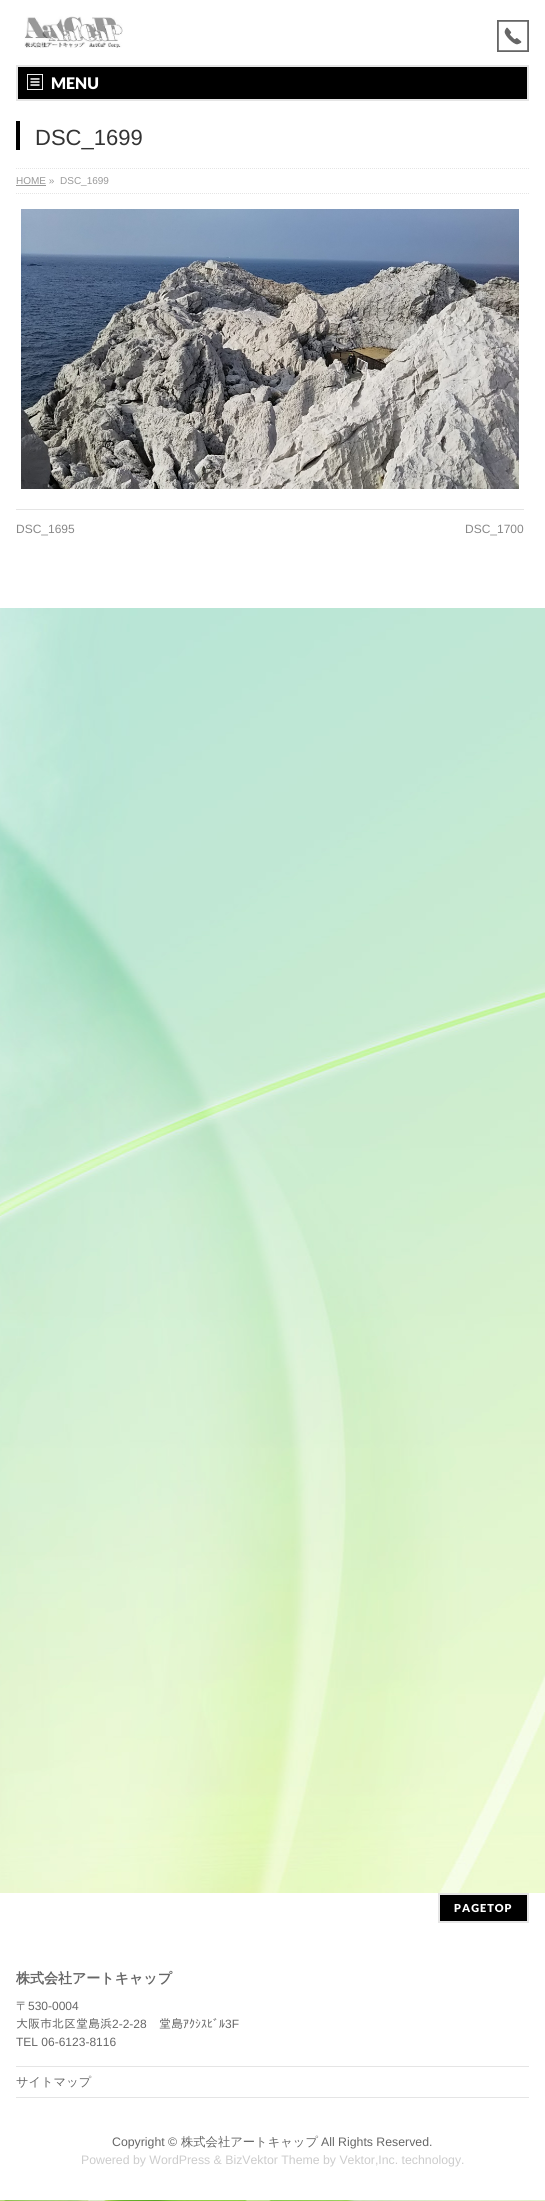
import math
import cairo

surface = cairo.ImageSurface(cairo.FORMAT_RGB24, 545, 2201)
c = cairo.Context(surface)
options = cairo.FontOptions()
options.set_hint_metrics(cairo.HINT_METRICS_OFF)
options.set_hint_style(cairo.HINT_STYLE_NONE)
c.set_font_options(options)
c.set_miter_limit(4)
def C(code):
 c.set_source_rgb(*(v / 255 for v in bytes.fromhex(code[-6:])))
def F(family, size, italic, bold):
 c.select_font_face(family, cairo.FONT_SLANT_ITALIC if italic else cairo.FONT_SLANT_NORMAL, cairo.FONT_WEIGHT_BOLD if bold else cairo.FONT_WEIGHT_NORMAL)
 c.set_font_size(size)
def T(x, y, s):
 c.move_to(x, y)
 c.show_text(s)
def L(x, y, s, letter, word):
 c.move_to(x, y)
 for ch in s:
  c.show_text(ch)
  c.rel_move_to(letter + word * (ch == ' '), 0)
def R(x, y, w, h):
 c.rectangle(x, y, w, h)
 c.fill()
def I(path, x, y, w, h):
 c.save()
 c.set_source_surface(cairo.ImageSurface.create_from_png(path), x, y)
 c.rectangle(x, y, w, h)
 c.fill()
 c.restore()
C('ffffff')
c.paint()
I('1.png',0,608,545,1593)
I('2.png',24,16,99,32)
I('3.png',497,20,32,32)
C('000000')
c.rectangle(17.5,66.5,510,33)
c.fill_preserve()
C('e6e6e6')
c.set_line_width(1)
c.stroke()
c.rectangle(16.5,65.5,512,35)
C('e5e5e5')
c.stroke()
I('4.png',27,74,16,16)
F('Lato Black',16,0,0)
C('ffffff')
T(51,89,'MENU')
C('000000')
R(16,121,4,29)
F('Liberation Sans',22,0,0)
C('333333')
T(35,145,'DSC_1699')
c.new_path()
c.move_to(16,168.5)
c.line_to(529,168.5)
C('e5e5e5')
c.set_dash([1,1])
c.stroke()
c.new_path()
c.move_to(16,193.5)
c.line_to(529,193.5)
c.stroke()
F('Liberation Sans',10,0,0)
C('999999')
T(16,184,'HOME »')
R(16,185,30,1)
T(60,184,'DSC_1699')
I('5.png',21,209,498,280)
C('e5e5e5')
R(16,509,508,1)
F('Liberation Sans',12,0,0)
C('888888')
T(16,533,'DSC_1695')
T(465,533,'DSC_1700')
C('ffffff')
R(0,1893,545,225)
C('000000')
c.rectangle(439.5,1894.5,88,27)
c.fill_preserve()
C('e6e6e6')
c.set_dash([])
c.stroke()
c.rectangle(438.5,1893.5,90,29)
C('e5e5e5')
c.stroke()
F('Lato Black',11,0,0)
C('ffffff')
L(454,1912,'PAGETOP',1,0)
F('WenQuanYi Zen Hei',14,0,1)
C('666666')
T(16,1983,'株式会社アートキャップ')
F('WenQuanYi Zen Hei Medium',12,0,0)
T(16,2010,'〒')
F('Liberation Sans',12,0,0)
T(28,2010,'530-0004')
F('IPAPGothic',12,0,0)
T(16,2028,'大阪市北区堂島浜')
F('Liberation Sans',12,0,0)
T(112,2028,'2-2-28')
F('IPAPGothic',12,0,0)
T(159,2028,'堂島ｱｸｼｽﾋﾞﾙ')
F('Liberation Sans',12,0,0)
T(225,2028,'3F')
T(16,2046,'TEL 06-6123-8116')
C('e5e5e5')
R(16,2066,513,1)
R(16,2097,513,1)
F('WenQuanYi Zen Hei Medium',12.25,0,0)
C('666666')
T(16,2086,'サイトマップ')
C('ffffff')
R(0,2118,545,82)
F('Liberation Sans',12.3,0,0)
C('666666')
T(112,2146,'Copyright ©')
F('WenQuanYi Zen Hei Medium',12.3,0,0)
T(181,2146,'株式会社アートキャップ')
F('Liberation Sans',12.3,0,0)
T(321,2146,'All Rights Reserved.')
C('cccccc')
T(81,2164,'Powered by WordPress & BizVektor Theme by Vektor,Inc. technology.')
surface.write_to_png('o.png')
